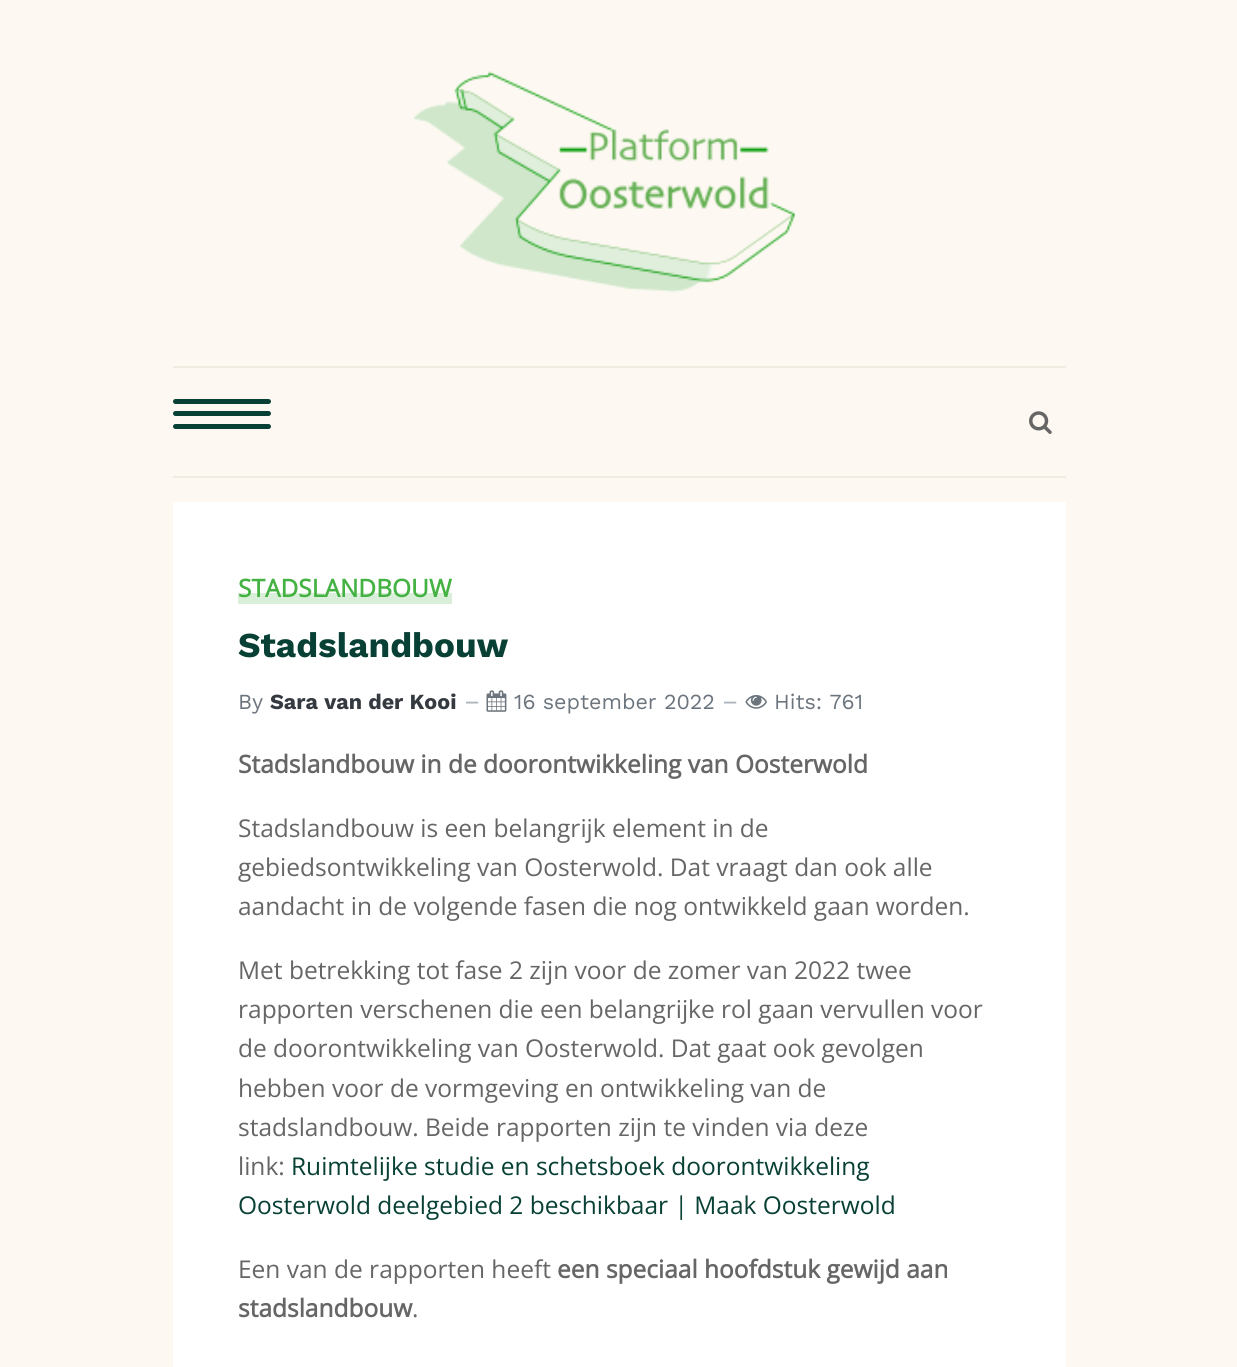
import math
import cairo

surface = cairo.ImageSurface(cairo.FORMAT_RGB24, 1237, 1367)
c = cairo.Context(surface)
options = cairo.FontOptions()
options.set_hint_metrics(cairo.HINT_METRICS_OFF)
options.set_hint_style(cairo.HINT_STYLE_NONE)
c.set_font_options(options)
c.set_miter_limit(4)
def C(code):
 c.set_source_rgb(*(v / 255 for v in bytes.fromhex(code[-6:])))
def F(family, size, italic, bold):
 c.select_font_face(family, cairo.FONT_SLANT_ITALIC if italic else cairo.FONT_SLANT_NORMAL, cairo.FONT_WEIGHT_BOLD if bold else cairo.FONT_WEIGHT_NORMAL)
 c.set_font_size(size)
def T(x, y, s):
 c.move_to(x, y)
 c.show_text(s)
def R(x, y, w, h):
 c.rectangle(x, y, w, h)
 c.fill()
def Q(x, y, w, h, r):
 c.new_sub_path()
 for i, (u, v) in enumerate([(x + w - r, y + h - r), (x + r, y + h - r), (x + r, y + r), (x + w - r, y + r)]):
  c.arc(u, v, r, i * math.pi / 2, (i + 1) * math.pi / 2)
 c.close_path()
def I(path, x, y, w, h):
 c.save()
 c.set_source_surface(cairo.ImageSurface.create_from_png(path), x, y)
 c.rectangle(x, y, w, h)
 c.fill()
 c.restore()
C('fdf9f2')
c.paint()
I('1.png',413,71,383,222)
C('f1ece2')
R(173,366,893,2)
C('084035')
Q(173,411,98,5,2.5)
c.fill()
Q(173,399,98,5,2.5)
c.fill()
Q(173,424,98,5,2.5)
c.fill()
I('2.png',1029,411,23,23)
C('f1ece2')
R(173,476,893,2)
C('ffffff')
R(173,502,893,865)
F('Open Sans',24.5,0,1)
C('45b244')
T(238,597,'STADSLANDBOUW')
c.set_source_rgba(0.271,0.698,0.267,0.2)
R(238,593,214,11)
F('Work Sans',35,0,1)
C('084035')
T(238,657,'Stadslandbouw')
F('Work Sans',21.5,0,0)
C('6c757d')
T(238,709,'By')
F('Work Sans',21.5,0,1)
C('343a40')
T(270,709,'Sara van der Kooi')
F('Work Sans',24.5,0,0)
C('adb5bd')
T(464,709,'–')
I('3.png',486,690,21,22)
F('Work Sans',21.5,0,0)
C('6c757d')
T(514,709,'16 september 2022')
F('Work Sans',24.5,0,0)
C('adb5bd')
T(722,709,'–')
I('4.png',745,695,22,14)
F('Work Sans',21.5,0,0)
C('6c757d')
T(774,709,'Hits: 761')
F('Open Sans',24.5,0,1)
C('666666')
T(238,773,'Stadslandbouw in de doorontwikkeling van Oosterwold')
F('Open Sans',24.5,0,0)
T(238,837,'Stadslandbouw is een belangrijk element in de')
T(238,876,'gebiedsontwikkeling van Oosterwold. Dat vraagt dan ook alle')
T(238,915,'aandacht in de volgende fasen die nog ontwikkeld gaan worden.')
T(238,979,'Met betrekking tot fase 2 zijn voor de zomer van 2022 twee')
T(238,1018,'rapporten verschenen die een belangrijke rol gaan vervullen voor')
T(238,1057,'de doorontwikkeling van Oosterwold. Dat gaat ook gevolgen')
T(238,1097,'hebben voor de vormgeving en ontwikkeling van de')
T(238,1136,'stadslandbouw. Beide rapporten zijn te vinden via deze')
T(238,1175,'link:')
C('084035')
T(291,1175,'Ruimtelijke studie en schetsboek doorontwikkeling')
T(238,1214,'Oosterwold deelgebied 2 beschikbaar | Maak Oosterwold')
C('666666')
T(238,1278,'Een van de rapporten heeft')
F('Open Sans',24.5,0,1)
T(557,1278,'een speciaal hoofdstuk gewijd aan')
T(238,1317,'stadslandbouw')
F('Open Sans',24.5,0,0)
T(412,1317,'.')
surface.write_to_png('o.png')
